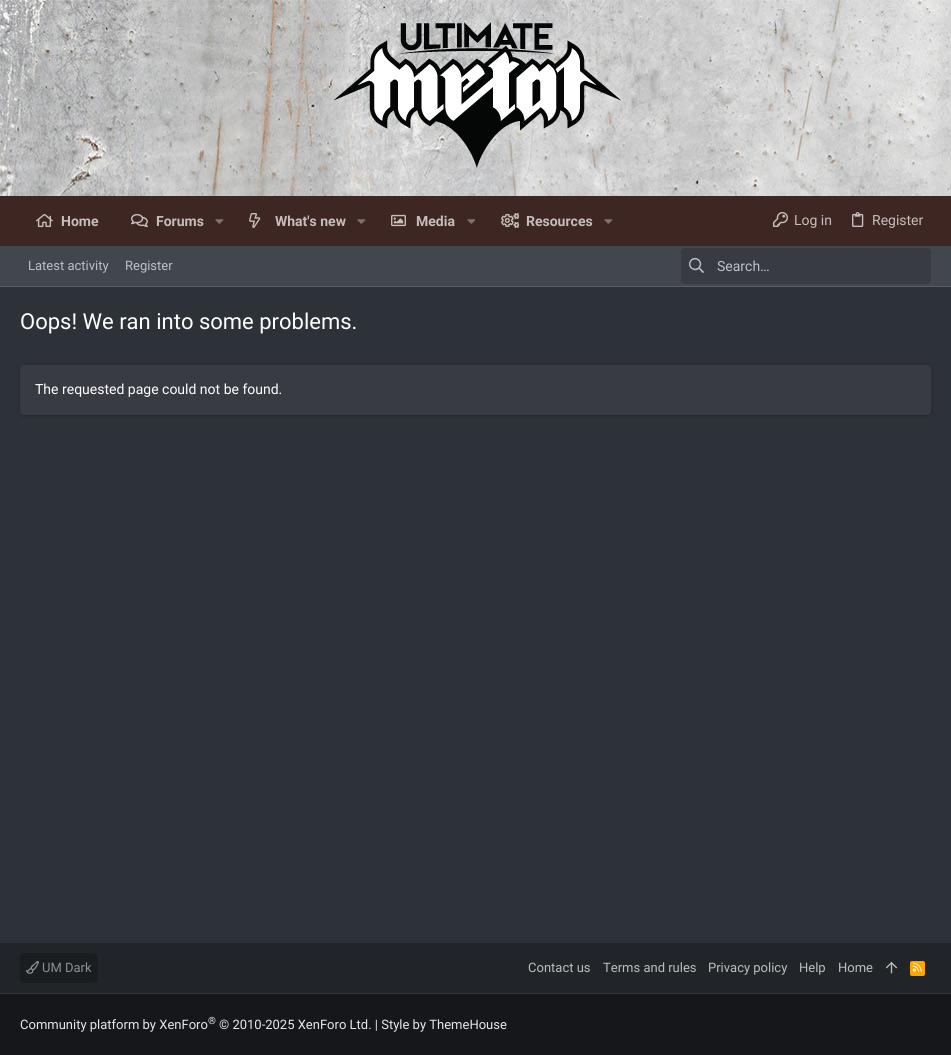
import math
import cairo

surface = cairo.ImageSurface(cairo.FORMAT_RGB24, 951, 1055)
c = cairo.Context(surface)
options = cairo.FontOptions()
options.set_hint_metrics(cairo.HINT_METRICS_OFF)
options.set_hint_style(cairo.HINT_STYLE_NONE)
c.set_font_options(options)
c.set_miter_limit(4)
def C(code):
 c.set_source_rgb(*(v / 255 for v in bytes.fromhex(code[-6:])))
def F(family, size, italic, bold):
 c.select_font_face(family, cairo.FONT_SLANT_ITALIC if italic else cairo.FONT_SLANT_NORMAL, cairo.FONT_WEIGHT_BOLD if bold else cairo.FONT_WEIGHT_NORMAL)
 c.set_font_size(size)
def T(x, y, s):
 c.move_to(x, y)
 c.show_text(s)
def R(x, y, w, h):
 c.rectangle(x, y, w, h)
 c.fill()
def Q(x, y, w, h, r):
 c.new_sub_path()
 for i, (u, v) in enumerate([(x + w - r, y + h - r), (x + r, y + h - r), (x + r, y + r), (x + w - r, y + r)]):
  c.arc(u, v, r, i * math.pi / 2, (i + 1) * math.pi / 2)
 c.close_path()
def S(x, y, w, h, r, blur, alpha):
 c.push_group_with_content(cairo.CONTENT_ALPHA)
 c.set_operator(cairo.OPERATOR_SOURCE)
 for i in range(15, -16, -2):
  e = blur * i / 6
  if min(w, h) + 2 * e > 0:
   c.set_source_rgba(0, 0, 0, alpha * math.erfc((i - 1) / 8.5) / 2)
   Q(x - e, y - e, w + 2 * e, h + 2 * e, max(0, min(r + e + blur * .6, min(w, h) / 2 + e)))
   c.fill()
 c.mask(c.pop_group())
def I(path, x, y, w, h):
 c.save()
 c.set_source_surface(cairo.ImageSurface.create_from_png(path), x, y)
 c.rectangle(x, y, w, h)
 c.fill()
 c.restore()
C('2d3238')
c.paint()
I('1.png',0,0,951,196)
I('2.png',334,22,287,146)
C('3e2722')
R(0,196,951,50)
I('3.png',36,214,17,14)
F('Roboto',14,0,1)
C('c5bebd')
T(61,226,'Home')
I('4.png',131,214,17,13)
T(156,226,'Forums')
I('5.png',215,219,9,5)
I('6.png',249,213,12,15)
T(275,226,'What\'s new')
I('5.png',357,219,9,5)
I('7.png',391,214,15,13)
T(416,226,'Media')
I('8.png',467,219,8,5)
I('9.png',501,213,18,15)
T(526,226,'Resources')
I('5.png',604,219,9,5)
I('10.png',773,212,15,15)
F('Roboto',14,0,0)
T(794,225,'Log in')
I('11.png',852,212,12,15)
T(872,225,'Register')
C('42464d')
R(0,246,951,40)
C('595c62')
R(0,286,951,1)
F('Roboto',13,0,0)
C('bcc0c7')
T(28,270,'Latest activity')
T(125,270,'Register')
C('383c42')
Q(681,248,250,36,4)
c.fill()
I('12.png',689,258,15,15)
F('Roboto',14,0,0)
C('bcc0c7')
T(717,271,'Search…')
F('Roboto',22,0,0)
C('ffffff')
T(20,329,'Oops! We ran into some problems.')
C('000000')
S(20,366,911,50,4,2.5,.2)
C('383c42')
Q(20,365,911,50,4)
c.fill()
F('Roboto',14,0,0)
C('ffffff')
T(35,394,'The requested page could not be found.')
C('212428')
R(0,943,951,50)
C('1a1d20')
Q(20,953,78,30,4)
c.fill()
I('13.png',26,961,13,13)
F('Roboto',13,0,0)
C('8d8e90')
T(42,972,'UM Dark')
C('bcbdbf')
T(528,972,'Contact us')
T(603,972,'Terms and rules')
T(708,972,'Privacy policy')
T(799,972,'Help')
T(838,972,'Home')
I('14.png',885,961,13,13)
C('ffa500')
Q(910,961,15,15,2)
c.fill()
I('15.png',912,962,10,10)
C('15171a')
R(0,994,951,61)
C('313335')
R(0,993,951,1)
C('e6e7ea')
T(20,1029,'Community platform by XenForo')
F('Roboto',10,0,0)
T(208,1024,'®')
F('Roboto',13,0,0)
T(219,1029,'© 2010-2025 XenForo Ltd. | Style by ThemeHouse')
surface.write_to_png('o.png')
